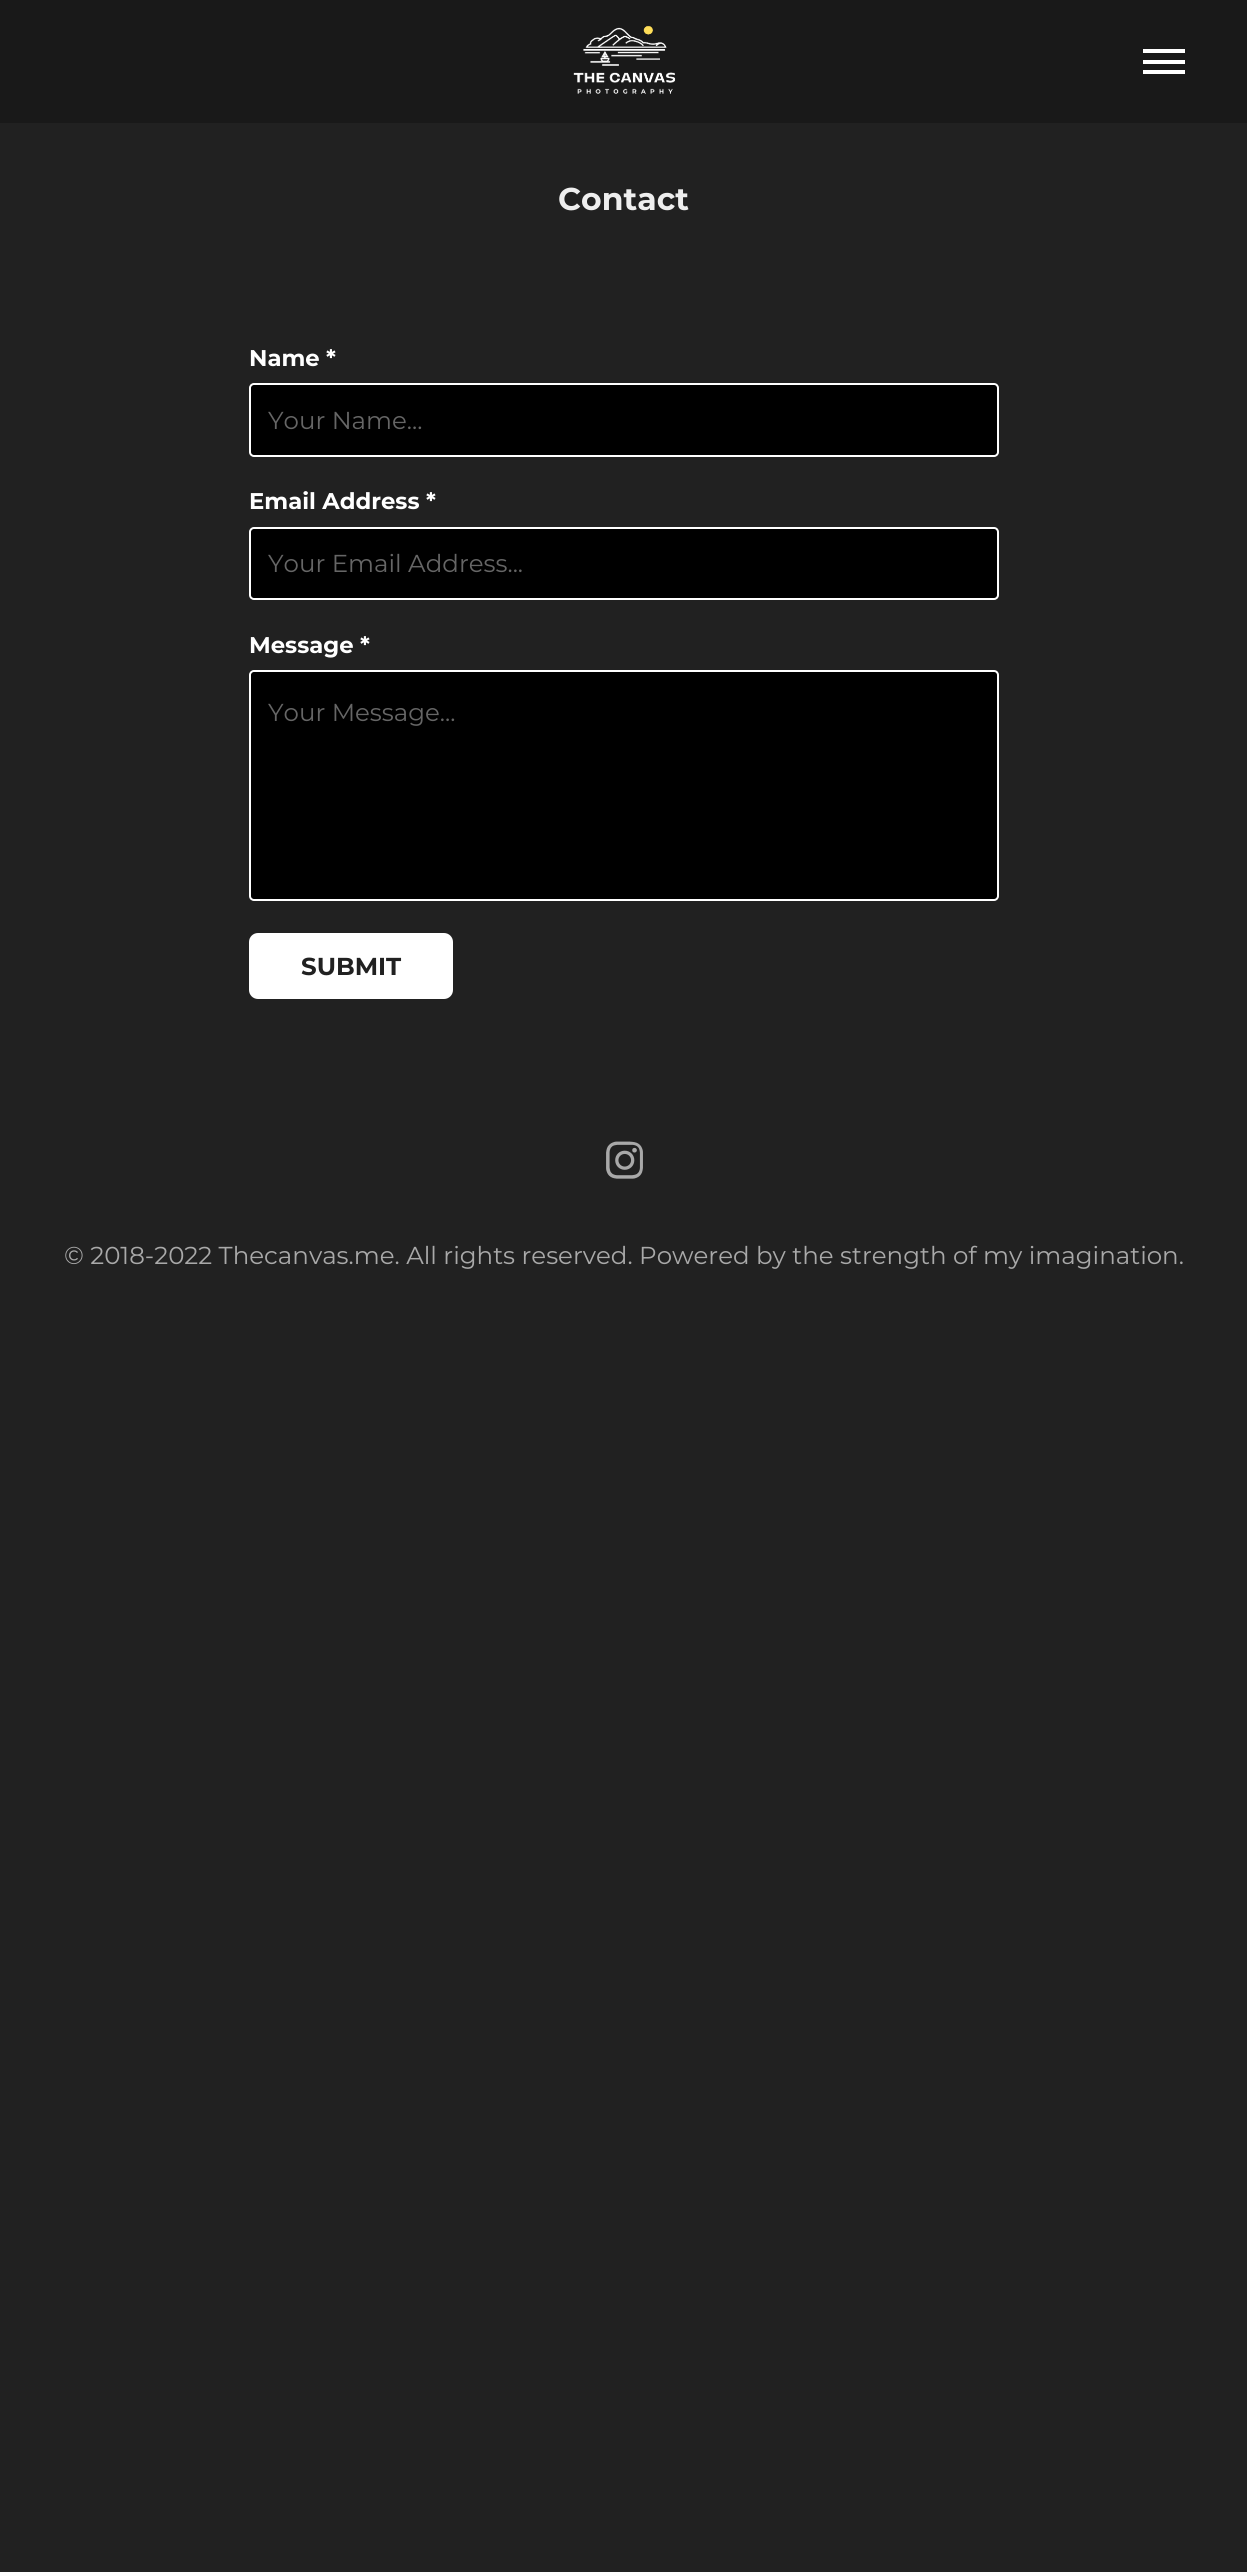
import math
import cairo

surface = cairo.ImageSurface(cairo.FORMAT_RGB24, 1247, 2572)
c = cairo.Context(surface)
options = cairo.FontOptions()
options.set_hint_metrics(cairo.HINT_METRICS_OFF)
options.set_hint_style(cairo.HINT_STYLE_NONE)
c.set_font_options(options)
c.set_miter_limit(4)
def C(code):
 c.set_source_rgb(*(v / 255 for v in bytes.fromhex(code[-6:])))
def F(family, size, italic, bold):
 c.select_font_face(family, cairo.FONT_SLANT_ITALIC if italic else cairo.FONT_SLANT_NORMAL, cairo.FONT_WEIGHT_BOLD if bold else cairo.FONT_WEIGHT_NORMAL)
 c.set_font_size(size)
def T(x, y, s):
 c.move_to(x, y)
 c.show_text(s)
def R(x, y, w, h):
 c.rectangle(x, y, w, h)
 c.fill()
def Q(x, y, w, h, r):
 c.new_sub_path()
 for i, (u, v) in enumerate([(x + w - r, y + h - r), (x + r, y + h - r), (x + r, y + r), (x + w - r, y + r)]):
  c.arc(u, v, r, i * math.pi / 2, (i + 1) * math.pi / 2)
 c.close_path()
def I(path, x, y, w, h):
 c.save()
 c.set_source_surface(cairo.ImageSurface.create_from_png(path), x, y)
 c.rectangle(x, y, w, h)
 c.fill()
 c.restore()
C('212121')
c.paint()
C('191919')
R(0,0,1247,123)
I('1.png',573,25,103,69)
C('ffffff')
R(1143,49,42,4)
R(1143,60,42,4)
R(1143,70,42,4)
F('Montserrat',31.5,0,1)
C('eeeeee')
T(558,210,'Contact')
F('Montserrat',22.75,0,1)
C('ffffff')
T(249,366,'Name *')
C('000000')
Q(250,384,748,72,4)
c.fill_preserve()
C('ffffff')
c.stroke()
F('Montserrat',24.5,0,0)
C('666666')
T(268,429,'Your Name...')
F('Montserrat',22.75,0,1)
C('ffffff')
T(249,509,'Email Address *')
C('000000')
Q(250,528,748,71,4)
c.fill_preserve()
C('ffffff')
c.stroke()
F('Montserrat',24.5,0,0)
C('666666')
T(268,572,'Your Email Address...')
F('Montserrat',22.75,0,1)
C('ffffff')
T(249,653,'Message *')
C('000000')
Q(250,671,748,229,4)
c.fill_preserve()
C('ffffff')
c.stroke()
F('Montserrat',24.5,0,0)
C('666666')
T(268,721,'Your Message...')
C('ffffff')
Q(249,933,204,66,9)
c.fill()
F('Montserrat',24.5,0,1)
C('212121')
T(301,975,'SUBMIT')
I('2.png',606,1141,37,38)
F('Montserrat',24.5,0,0)
C('a9a9a9')
T(64,1264,'© 2018-2022 Thecanvas.me. All rights reserved. Powered by the strength of my imagination.')
surface.write_to_png('o.png')
